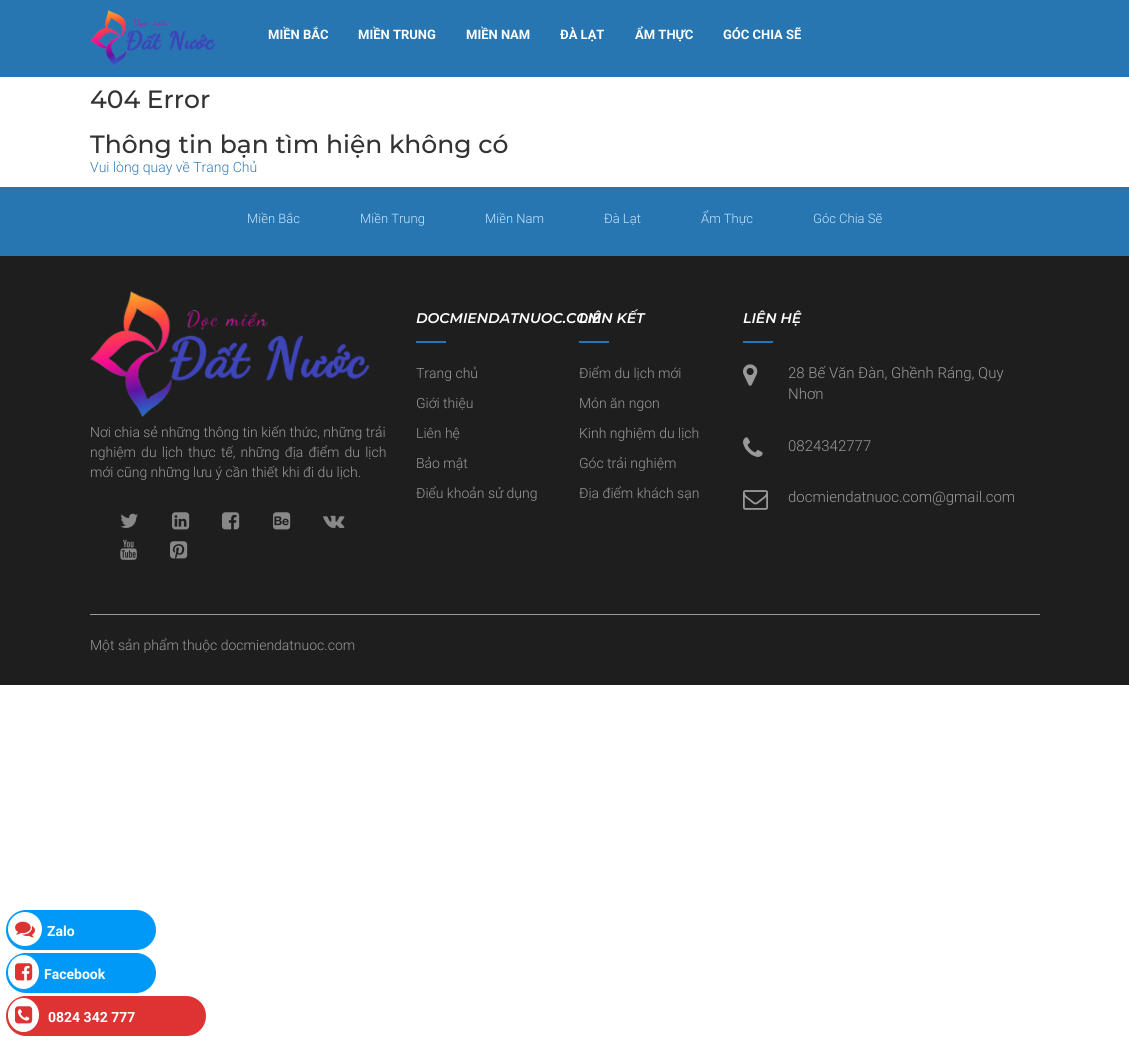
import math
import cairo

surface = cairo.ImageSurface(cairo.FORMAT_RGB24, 1129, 1046)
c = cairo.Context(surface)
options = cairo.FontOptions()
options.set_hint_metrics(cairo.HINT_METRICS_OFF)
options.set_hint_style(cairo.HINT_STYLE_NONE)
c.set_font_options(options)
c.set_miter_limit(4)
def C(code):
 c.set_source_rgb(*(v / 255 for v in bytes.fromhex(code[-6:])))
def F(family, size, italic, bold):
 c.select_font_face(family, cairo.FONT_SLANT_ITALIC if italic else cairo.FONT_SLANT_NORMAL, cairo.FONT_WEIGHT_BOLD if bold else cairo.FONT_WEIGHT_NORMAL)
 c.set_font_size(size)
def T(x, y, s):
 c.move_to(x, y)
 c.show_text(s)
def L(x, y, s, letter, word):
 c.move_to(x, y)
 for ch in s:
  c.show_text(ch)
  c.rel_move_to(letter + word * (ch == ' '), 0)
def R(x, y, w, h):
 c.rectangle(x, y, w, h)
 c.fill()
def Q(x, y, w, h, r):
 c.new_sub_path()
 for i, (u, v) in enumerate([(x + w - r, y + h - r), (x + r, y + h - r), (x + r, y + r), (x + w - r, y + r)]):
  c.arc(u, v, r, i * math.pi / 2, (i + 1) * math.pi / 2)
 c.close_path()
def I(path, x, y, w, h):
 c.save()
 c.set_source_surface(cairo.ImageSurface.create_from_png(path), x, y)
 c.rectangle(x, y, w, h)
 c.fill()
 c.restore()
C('ffffff')
c.paint()
C('2775b1')
R(0,0,1129,77)
I('1.png',90,10,126,57)
F('Roboto',13,0,1)
C('ffffff')
T(268,39,'MIỀN BẮC')
T(358,39,'MIỀN TRUNG')
T(466,39,'MIỀN NAM')
T(560,39,'ĐÀ LẠT')
T(635,39,'ẨM THỰC')
T(723,39,'GÓC CHIA SẼ')
F('Montserrat Medium',25,0,0)
C('333333')
T(90,108,'404 Error')
T(90,153,'Thông tin bạn tìm hiện không có')
F('Roboto Light',14,0,0)
C('337ab7')
T(90,172,'Vui lòng quay về Trang Chủ')
C('2775b1')
R(0,187,1129,69)
F('Roboto Light',13,0,0)
C('c7e7ff')
T(247,223,'Miền Bắc')
T(360,223,'Miền Trung')
T(485,223,'Miền Nam')
T(604,223,'Đà Lạt')
T(701,223,'Ẩm Thực')
T(813,223,'Góc Chia Sẽ')
C('1e1e1e')
R(0,256,1129,429)
I('2.png',90,291,280,126)
F('Roboto Light',14,0,0)
C('999999')
T(90,437,'Nơi chia sẻ những thông tin kiến thức, những trải')
L(90,457,'nghiệm du lịch thực tế, những địa điểm du lịch',0,1.75)
T(90,477,'mới cũng những lưu ý cần thiết khi đi du lịch.')
I('3.png',120,513,18,15)
I('4.png',172,512,18,18)
I('5.png',222,512,18,18)
I('6.png',273,512,18,18)
I('7.png',323,515,22,13)
I('8.png',120,539,17,21)
I('9.png',170,541,18,18)
F('Montserrat SemiBold',14,1,0)
C('ffffff')
T(416,323,'DOCMIENDATNUOC.COM')
C('2775b1')
R(416,341,30,2)
F('Roboto Light',14,0,0)
C('999999')
T(416,378,'Trang chủ')
T(416,408,'Giới thiệu')
T(416,438,'Liên hệ')
T(416,468,'Bảo mật')
T(416,498,'Điểu khoản sử dụng')
F('Montserrat SemiBold',14,1,0)
C('ffffff')
T(579,323,'LIÊN KẾT')
C('2775b1')
R(579,341,30,2)
F('Roboto Light',14,0,0)
C('999999')
T(579,378,'Điểm du lịch mới')
T(579,408,'Món ăn ngon')
T(579,438,'Kinh nghiệm du lịch')
T(579,468,'Góc trải nghiệm')
T(579,498,'Địa điểm khách sạn')
F('Montserrat SemiBold',14,1,0)
C('ffffff')
T(743,323,'LIÊN HỆ')
C('2775b1')
R(743,341,30,2)
I('10.png',743,364,15,22)
F('Roboto Light',15,0,0)
C('999999')
T(788,378,'28 Bế Văn Đàn, Ghềnh Ráng, Quy')
T(788,399,'Nhơn')
I('11.png',743,437,20,20)
T(788,451,'0824342777')
I('12.png',743,490,25,20)
T(788,502,'docmiendatnuoc.com@gmail.com')
R(90,614,950,1)
F('Roboto Light',14,0,0)
T(90,650,'Một sản phẩm thuộc docmiendatnuoc.com')
C('0099f8')
Q(6,910,150,40,20)
c.fill()
C('ffffff')
c.arc(25,929,17,0,2 * math.pi)
c.fill()
I('13.png',15,921,20,17)
F('Roboto',14,0,1)
T(47,936,'Zalo')
C('0099f8')
Q(6,953,150,40,20)
c.fill()
C('ffffff')
c.new_path()
c.move_to(23.5,955)
c.curve_to(32,955,39,962.5,39,972)
c.curve_to(39,981.5,32,989,23.5,989)
c.curve_to(15,989,8,981.5,8,972)
c.curve_to(8,962.5,15,955,23.5,955)
c.close_path()
c.fill()
I('14.png',15,963,18,18)
T(44,979,'Facebook')
C('dd3333')
Q(6,996,200,40,20)
c.fill()
C('ffffff')
c.new_path()
c.move_to(23.5,998)
c.curve_to(32,998,39,1005.5,39,1015)
c.curve_to(39,1024.5,32,1032,23.5,1032)
c.curve_to(15,1032,8,1024.5,8,1015)
c.curve_to(8,1005.5,15,998,23.5,998)
c.close_path()
c.fill()
I('15.png',15,1006,18,18)
T(48,1022,'0824 342 777')
surface.write_to_png('o.png')
